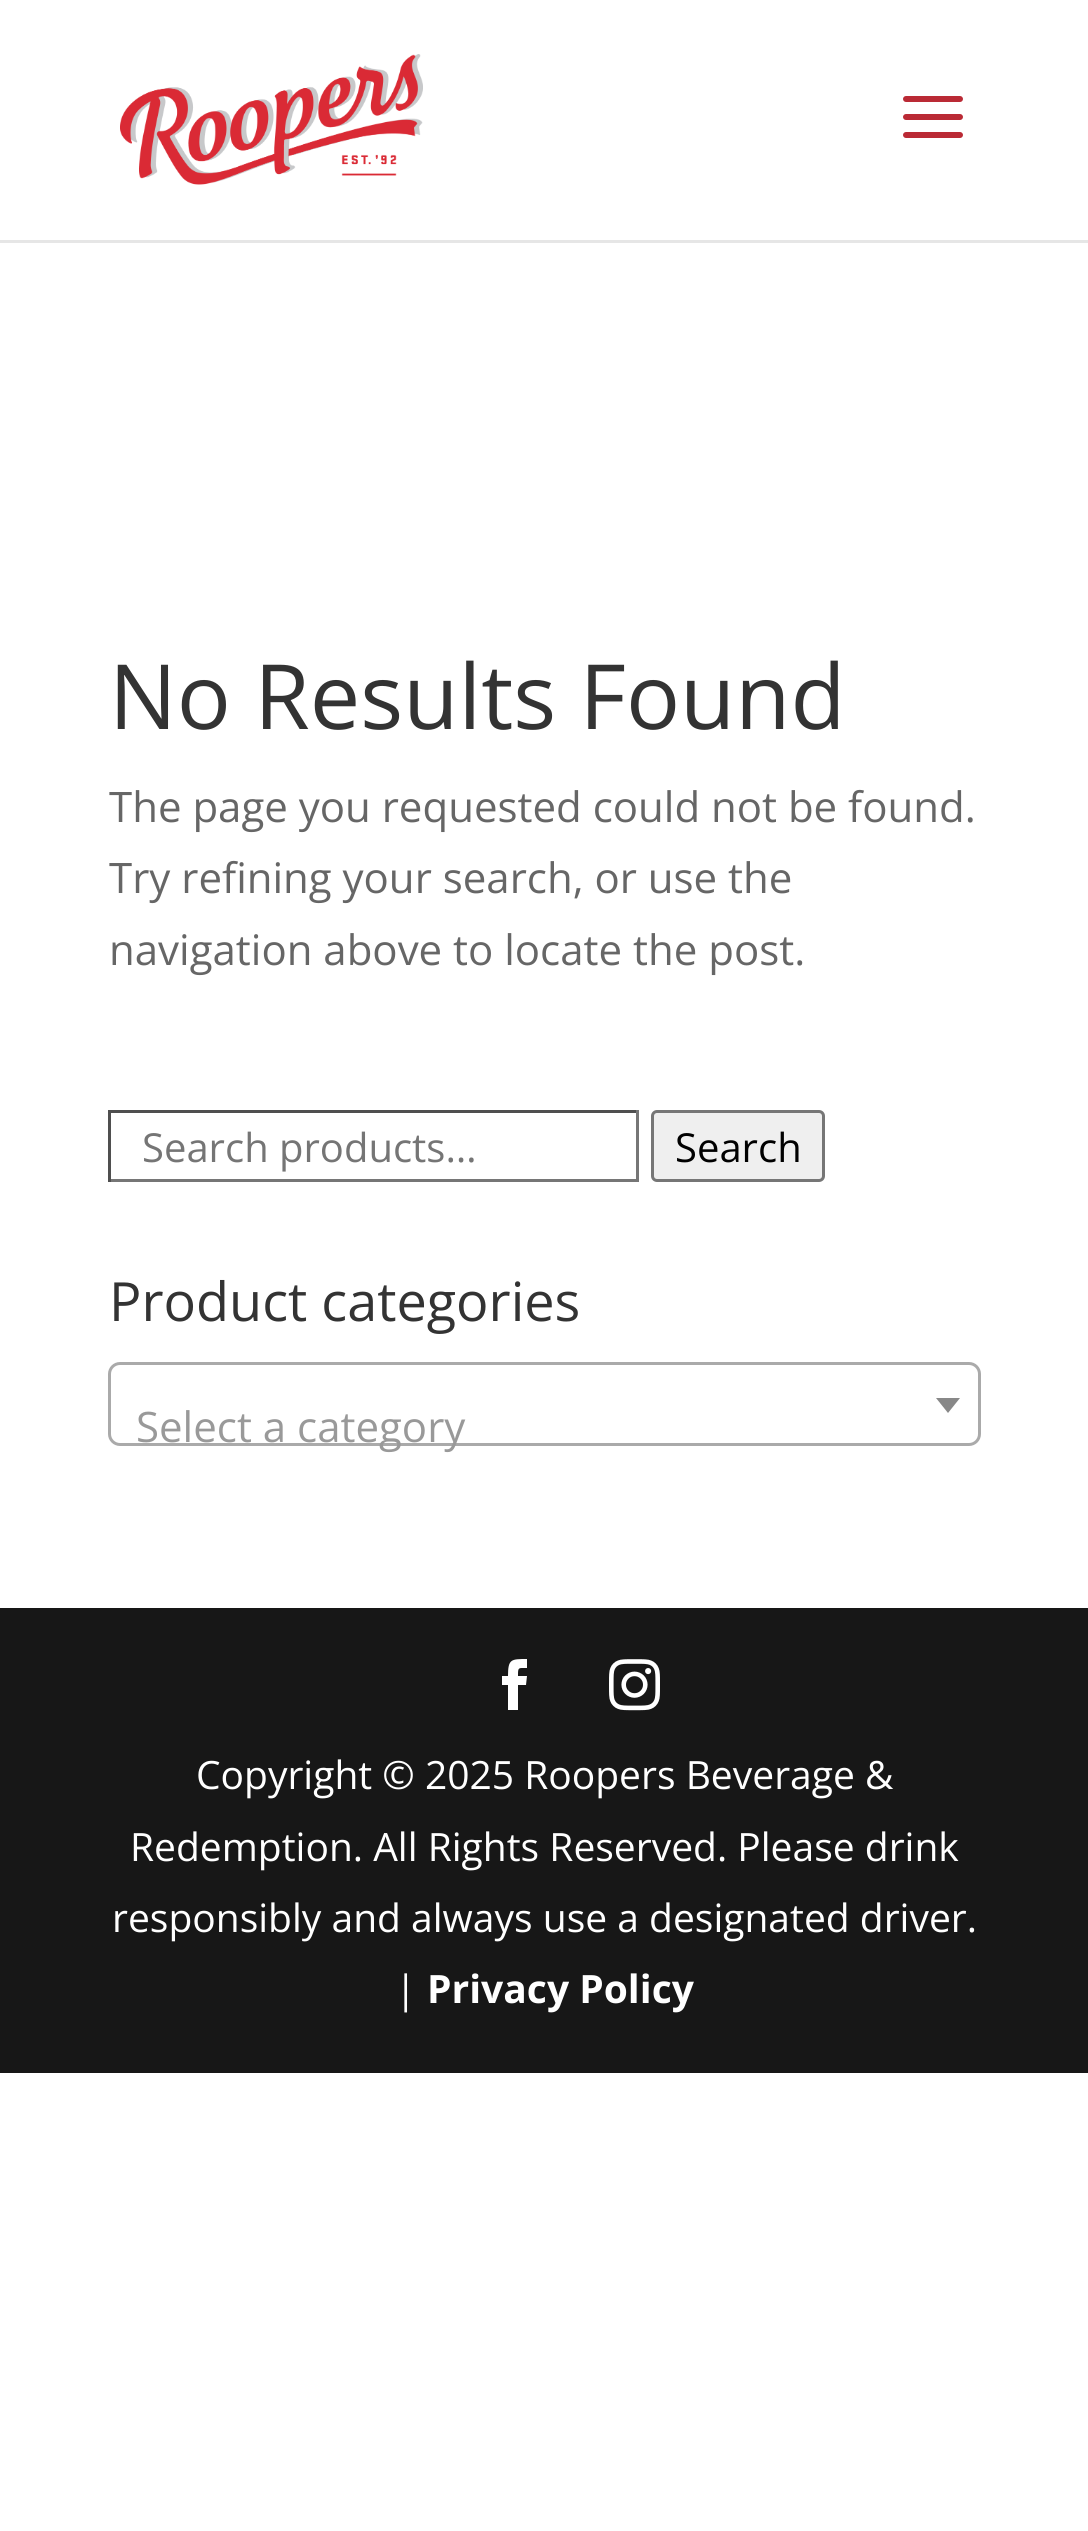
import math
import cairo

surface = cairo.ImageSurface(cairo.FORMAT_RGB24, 1088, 2531)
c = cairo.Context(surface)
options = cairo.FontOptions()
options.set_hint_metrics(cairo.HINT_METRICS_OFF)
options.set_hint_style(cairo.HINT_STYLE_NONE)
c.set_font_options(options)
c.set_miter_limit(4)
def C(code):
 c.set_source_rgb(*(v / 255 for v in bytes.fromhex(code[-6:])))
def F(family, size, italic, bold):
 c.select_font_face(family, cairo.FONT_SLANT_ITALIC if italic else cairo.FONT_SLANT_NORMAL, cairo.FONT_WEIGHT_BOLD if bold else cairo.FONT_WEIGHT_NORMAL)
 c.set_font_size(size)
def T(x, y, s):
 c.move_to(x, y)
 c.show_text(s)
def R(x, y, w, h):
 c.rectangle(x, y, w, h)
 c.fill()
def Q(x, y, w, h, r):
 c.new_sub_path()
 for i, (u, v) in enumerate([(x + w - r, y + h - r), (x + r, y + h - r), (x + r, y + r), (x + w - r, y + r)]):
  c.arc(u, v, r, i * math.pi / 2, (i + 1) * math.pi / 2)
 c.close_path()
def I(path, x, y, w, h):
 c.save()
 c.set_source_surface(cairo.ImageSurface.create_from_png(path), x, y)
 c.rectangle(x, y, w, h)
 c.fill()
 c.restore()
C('ffffff')
c.paint()
C('e6e6e6')
R(0,240,1088,3)
I('1.png',120,54,303,131)
I('2.png',903,96,60,42)
F('Open Sans',90,0,0)
C('333333')
T(109,729,'No Results Found')
F('Open Sans',42,0,0)
C('666666')
T(109,822,'The page you requested could not be found.')
T(109,893,'Try refining your search, or use the')
T(109,965,'navigation above to locate the post.')
C('4f4f4f')
R(108,1110,531,3)
C('767676')
R(636,1110,3,72)
R(108,1179,531,3)
C('4f4f4f')
R(108,1110,3,72)
F('Open Sans',40,0,0)
C('757575')
T(142,1162,'Search products…')
C('efefef')
Q(652.5,1111.5,171,69,4.5)
c.fill_preserve()
C('767676')
c.set_line_width(3)
c.stroke()
C('000000')
T(675,1162,'Search')
F('Open Sans',54,0,0)
C('333333')
T(109,1321,'Product categories')
Q(109.5,1363.5,870,81,10.5)
C('aaaaaa')
c.stroke()
C('888888')
c.new_path()
c.move_to(936,1398)
c.line_to(960,1398)
c.line_to(948,1413)
c.close_path()
c.fill()
F('Open Sans',42,0,0)
C('999999')
T(136,1442,'Select a category')
C('171717')
R(0,1608,1088,465)
C('ffffff')
c.new_path()
c.move_to(508,1710)
c.line_to(518,1710)
c.line_to(518,1685)
c.line_to(526,1685)
c.line_to(527,1676)
c.line_to(518,1676)
c.curve_to(518,1667,518,1668,527,1668)
c.line_to(527,1659)
c.curve_to(511,1659,508,1659,508,1676)
c.line_to(502,1676)
c.line_to(502,1685)
c.line_to(508,1685)
c.close_path()
c.fill()
I('3.png',609,1659,51,52)
F('Open Sans',39,0,0)
T(196,1789,'Copyright © 2025 Roopers Beverage &')
T(130,1861,'Redemption. All Rights Reserved. Please drink')
T(112,1932,'responsibly and always use a designated driver.')
T(395,2003,'|')
F('Open Sans',39,0,1)
T(427,2003,'Privacy Policy')
surface.write_to_png('o.png')
